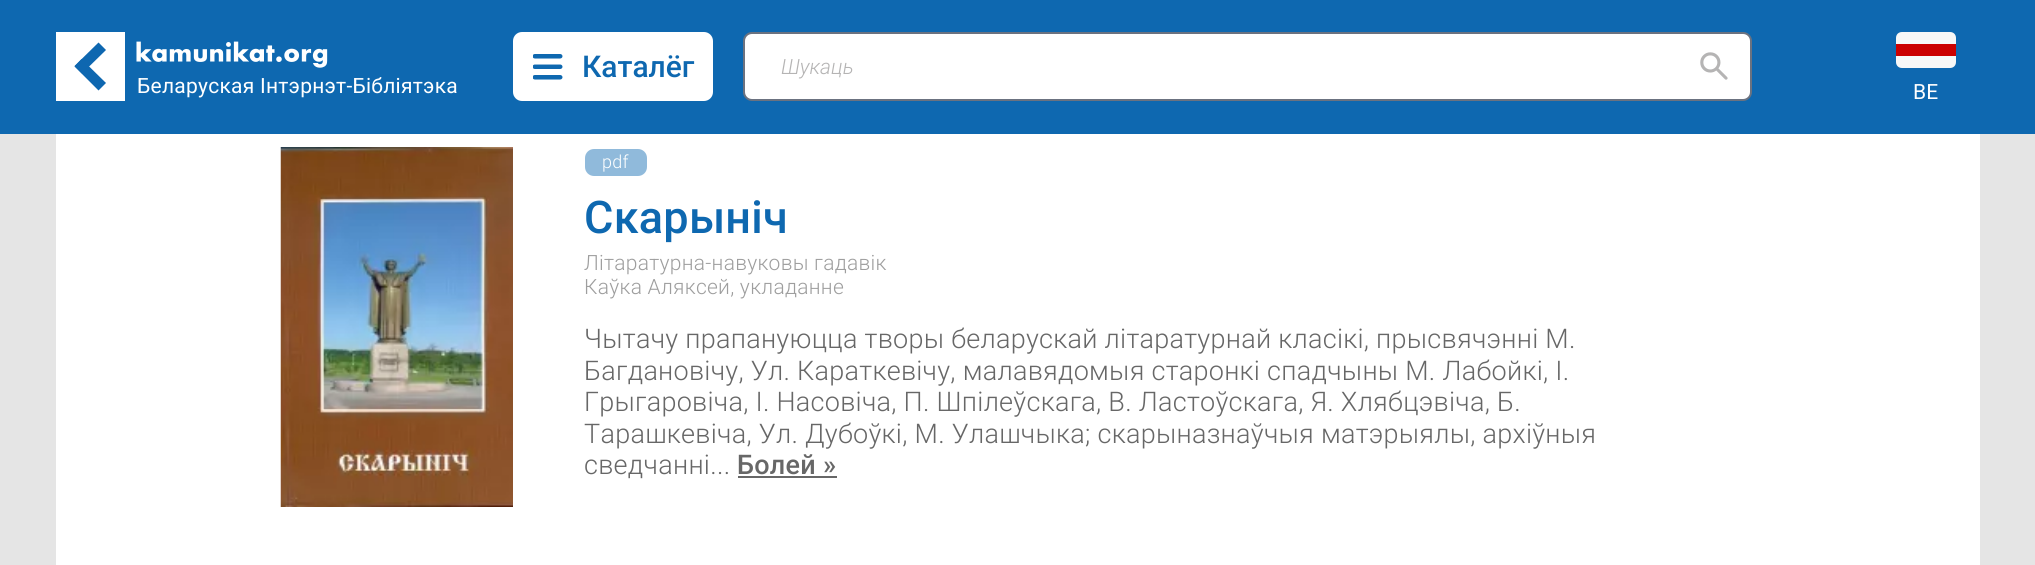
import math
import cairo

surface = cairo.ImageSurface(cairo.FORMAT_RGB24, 2035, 565)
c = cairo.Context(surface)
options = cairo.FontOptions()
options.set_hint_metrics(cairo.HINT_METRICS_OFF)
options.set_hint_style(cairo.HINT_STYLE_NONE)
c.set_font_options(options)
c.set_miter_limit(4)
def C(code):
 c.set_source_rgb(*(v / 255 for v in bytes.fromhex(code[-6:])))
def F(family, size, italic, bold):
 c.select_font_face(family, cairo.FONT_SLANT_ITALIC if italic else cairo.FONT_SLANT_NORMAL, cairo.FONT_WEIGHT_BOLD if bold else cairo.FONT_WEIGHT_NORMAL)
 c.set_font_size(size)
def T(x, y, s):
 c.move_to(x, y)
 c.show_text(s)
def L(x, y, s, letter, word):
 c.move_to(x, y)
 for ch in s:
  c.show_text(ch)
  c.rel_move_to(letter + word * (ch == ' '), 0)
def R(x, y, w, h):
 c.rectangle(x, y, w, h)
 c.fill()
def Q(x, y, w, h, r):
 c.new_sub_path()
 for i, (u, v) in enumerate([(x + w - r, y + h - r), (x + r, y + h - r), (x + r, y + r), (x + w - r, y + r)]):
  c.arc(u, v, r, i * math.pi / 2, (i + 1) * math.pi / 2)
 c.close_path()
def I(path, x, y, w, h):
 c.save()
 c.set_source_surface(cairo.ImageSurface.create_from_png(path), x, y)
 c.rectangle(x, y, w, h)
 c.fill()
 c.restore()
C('e5e5e5')
c.paint()
C('0e68b0')
R(0,0,2035,134)
C('ffffff')
R(56,32,69,69)
C('0e67b0')
c.new_path()
c.move_to(74.5,66.5)
c.line_to(81.5,59)
c.line_to(106,83)
c.line_to(98.5,90.5)
c.close_path()
c.fill()
c.new_path()
c.move_to(82,73.5)
c.line_to(74.5,66)
c.line_to(98.5,42.5)
c.line_to(106,50)
c.close_path()
c.fill()
C('ffffff')
Q(513,32,200,69,9)
c.fill()
I('1.png',533,54,30,26)
F('Roboto Medium',30,0,0)
C('0e68b0')
T(582,77,'Каталёг')
C('ffffff')
Q(744,33,1007,67,8)
c.fill_preserve()
C('6b7280')
c.stroke()
F('Roboto Light',21,1,0)
C('b5b4b4')
T(781,74,'Шукаць')
I('2.png',1700,52,28,28)
I('3.png',136,41,192,27)
F('Roboto',21,0,0)
C('ffffff')
L(137,93,'Беларуская Інтэрнэт-Бібліятэка',.25,0)
C('f7f7f7')
c.new_path()
c.move_to(1902,32)
c.line_to(1950,32)
c.curve_to(1953.5,32,1956,34.5,1956,38)
c.line_to(1956,44)
c.line_to(1896,44)
c.line_to(1896,38)
c.curve_to(1896,34.5,1898.5,32,1902,32)
c.close_path()
c.fill()
c.new_path()
c.move_to(1896,56)
c.line_to(1956,56)
c.line_to(1956,62)
c.curve_to(1956,65.5,1953.5,68,1950,68)
c.line_to(1902,68)
c.curve_to(1898.5,68,1896,65.5,1896,62)
c.close_path()
c.fill()
C('cc0000')
R(1896,44,60,12)
C('ffffff')
L(1913,99,'BE',.25,0)
R(56,134,1924,431)
I('4.png',280,147,233,360)
C('90badb')
Q(585,149,62,27,9)
c.fill()
F('Roboto Light',18,0,0)
C('ffffff')
L(602,168,'pdf',.27,0)
F('Roboto Medium',45,0,0)
C('0e68b0')
L(584,233,'Скарыніч',.27,0)
F('Roboto Light',21,0,0)
C('9e9e9e')
L(584,270,'Літаратурна-навуковы гадавік',.27,0)
L(584,294,'Каўка Аляксей, укладанне',.27,0)
F('Roboto Light',27,0,0)
C('676767')
L(584,348,'Чытачу прапануюцца творы беларускай літаратурнай класікі, прысвячэнні М.',.27,0)
L(584,380,'Багдановічу, Ул. Караткевічу, малавядомыя старонкі спадчыны М. Лабойкі, І.',.27,0)
L(584,411,'Грыгаровіча, І. Насовіча, П. Шпілеўскага, В. Ластоўскага, Я. Хлябцэвіча, Б.',.27,0)
L(584,443,'Тарашкевіча, Ул. Дубоўкі, М. Улашчыка; скарыназнаўчыя матэрыялы, архіўныя',.27,0)
L(584,474,'сведчанні...',.27,0)
F('Roboto Medium',27,0,0)
L(737,474,'Болей »',.27,0)
R(738,476,99,2)
surface.write_to_png('o.png')
